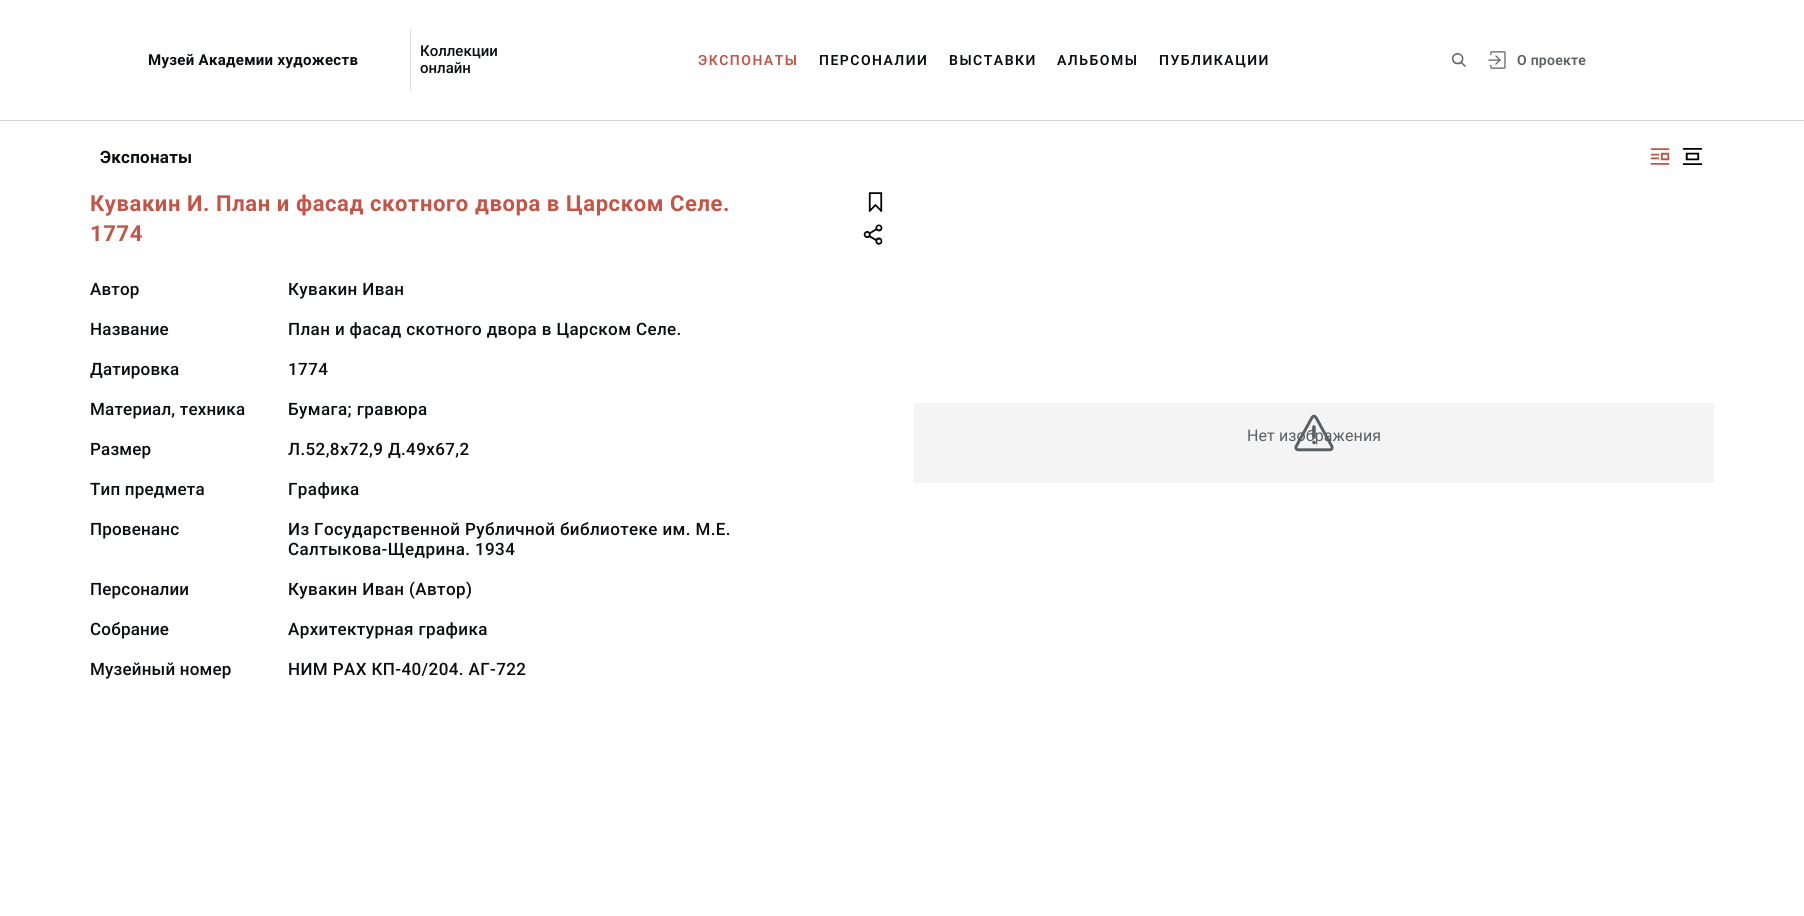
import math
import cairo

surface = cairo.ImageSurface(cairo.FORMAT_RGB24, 1804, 916)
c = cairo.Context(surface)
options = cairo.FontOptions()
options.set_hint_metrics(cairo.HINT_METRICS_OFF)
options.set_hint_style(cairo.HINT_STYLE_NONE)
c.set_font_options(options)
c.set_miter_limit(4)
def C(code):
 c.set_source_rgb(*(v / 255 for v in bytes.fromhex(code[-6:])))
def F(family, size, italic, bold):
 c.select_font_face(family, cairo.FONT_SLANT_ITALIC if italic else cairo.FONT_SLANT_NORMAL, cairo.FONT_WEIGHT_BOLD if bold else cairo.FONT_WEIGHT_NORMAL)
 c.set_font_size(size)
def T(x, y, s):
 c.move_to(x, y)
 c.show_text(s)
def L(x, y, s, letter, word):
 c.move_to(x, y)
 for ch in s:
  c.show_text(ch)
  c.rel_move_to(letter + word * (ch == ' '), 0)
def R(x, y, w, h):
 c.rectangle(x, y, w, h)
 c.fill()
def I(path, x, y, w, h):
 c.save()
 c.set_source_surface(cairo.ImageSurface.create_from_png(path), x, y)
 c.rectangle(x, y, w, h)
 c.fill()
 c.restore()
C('ffffff')
c.paint()
C('d3d3d3')
R(0,120,1804,1)
F('Roboto',15,0,1)
C('0a0d10')
L(148,65,'Музей Академии художеств',.3,0)
C('dedede')
R(410,29,1,62)
F('Roboto Medium',15,0,0)
C('0a0d10')
T(420,56,'Коллекции')
T(420,73,'онлайн')
F('Roboto SemiBold',14,0,0)
C('c35446')
L(698,65,'ЭКСПОНАТЫ',1.5,0)
C('0a0d10')
L(819,65,'ПЕРСОНАЛИИ',1.5,0)
L(949,65,'ВЫСТАВКИ',1.5,0)
L(1057,65,'АЛЬБОМЫ',1.5,0)
L(1159,65,'ПУБЛИКАЦИИ',1.5,0)
I('1.png',1452,53,14,14)
I('2.png',1488,51,18,18)
C('5c5f62')
L(1517,65,'О проекте',.25,0)
F('Roboto',17,0,1)
C('0a0d10')
L(100,163,'Экспонаты',.25,0)
I('3.png',1650,148,20,17)
I('4.png',1682,148,21,17)
F('Roboto',22,0,1)
C('c35446')
L(90,211,'Кувакин И. План и фасад скотного двора в Царском Селе.',.6,0)
L(90,241,'1774',.6,0)
I('5.png',868,192,15,20)
I('6.png',863,224,20,21)
F('Roboto Medium',17,0,0)
C('0a0d10')
L(90,295,'Автор',.2,0)
L(288,295,'Кувакин Иван',.4,0)
L(90,335,'Название',.2,0)
L(288,335,'План и фасад скотного двора в Царском Селе.',.4,0)
L(90,375,'Датировка',.2,0)
L(288,375,'1774',.4,0)
L(90,415,'Материал, техника',.2,0)
L(288,415,'Бумага; гравюра',.4,0)
L(90,455,'Размер',.2,0)
L(288,455,'Л.52,8х72,9 Д.49х67,2',.4,0)
L(90,495,'Тип предмета',.2,0)
L(288,495,'Графика',.4,0)
L(90,535,'Провенанс',.2,0)
L(288,535,'Из Государственной Рубличной библиотеке им. М.Е.',.4,0)
L(288,555,'Салтыкова-Щедрина. 1934',.4,0)
L(90,595,'Персоналии',.2,0)
L(288,595,'Кувакин Иван (Автор)',.4,0)
L(90,635,'Собрание',.2,0)
L(288,635,'Архитектурная графика',.4,0)
L(90,675,'Музейный номер',.2,0)
L(288,675,'НИМ РАХ КП-40/204. АГ-722',.4,0)
C('f4f4f5')
R(914,403,800,80)
F('Roboto',16,0,0)
C('5c5f62')
L(1247,441,'Нет изображения',.1,0)
I('7.png',1294,414,40,38)
surface.write_to_png('o.png')
